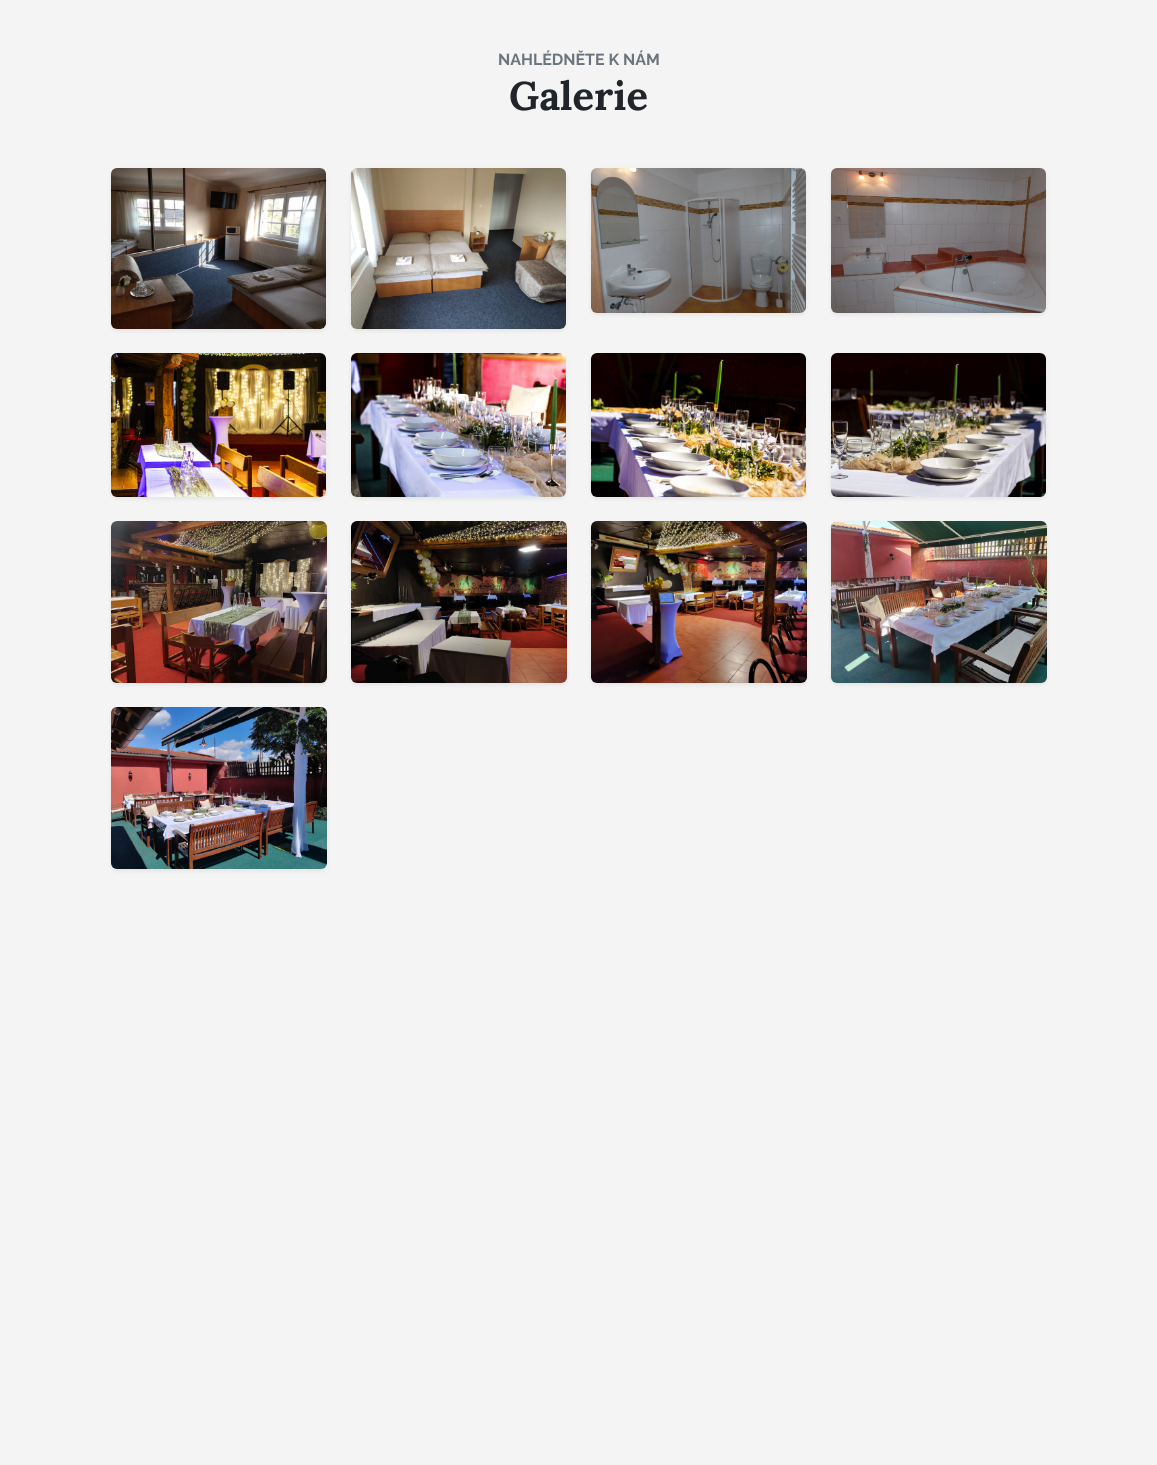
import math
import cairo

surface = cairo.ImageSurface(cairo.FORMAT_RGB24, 1157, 1465)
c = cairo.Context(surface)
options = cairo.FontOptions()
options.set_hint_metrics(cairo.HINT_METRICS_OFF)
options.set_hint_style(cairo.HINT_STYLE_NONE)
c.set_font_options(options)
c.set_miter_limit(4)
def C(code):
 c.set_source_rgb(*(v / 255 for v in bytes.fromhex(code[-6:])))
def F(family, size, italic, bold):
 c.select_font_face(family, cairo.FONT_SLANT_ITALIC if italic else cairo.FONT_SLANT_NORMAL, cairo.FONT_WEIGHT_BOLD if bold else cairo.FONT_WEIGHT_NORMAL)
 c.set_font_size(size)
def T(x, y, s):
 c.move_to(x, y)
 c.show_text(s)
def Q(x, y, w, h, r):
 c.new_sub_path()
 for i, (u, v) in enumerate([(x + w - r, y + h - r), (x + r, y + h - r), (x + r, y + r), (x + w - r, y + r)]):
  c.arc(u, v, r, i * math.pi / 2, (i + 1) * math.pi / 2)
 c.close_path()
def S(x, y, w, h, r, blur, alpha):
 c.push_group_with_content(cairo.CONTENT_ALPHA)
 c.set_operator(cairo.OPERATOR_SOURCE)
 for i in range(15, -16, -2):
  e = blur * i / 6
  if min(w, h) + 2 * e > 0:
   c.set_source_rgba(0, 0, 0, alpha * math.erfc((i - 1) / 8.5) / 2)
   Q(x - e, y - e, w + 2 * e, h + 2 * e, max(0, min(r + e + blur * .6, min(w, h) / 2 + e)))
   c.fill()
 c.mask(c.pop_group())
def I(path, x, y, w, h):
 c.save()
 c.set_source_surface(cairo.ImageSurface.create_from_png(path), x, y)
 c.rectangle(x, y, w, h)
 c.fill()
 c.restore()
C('f4f4f4')
c.paint()
F('Raleway',16,0,1)
C('6c757d')
T(498,65,'NAHLÉDNĚTE K NÁM')
F('Lora',40,0,1)
C('212529')
T(509,110,'Galerie')
C('000000')
S(111,170,215,161,6,2,.07)
I('1.png',111,168,215,161)
S(351,170,215,161,6,2,.07)
I('2.png',351,168,215,161)
S(591,170,215,145,6,2,.07)
I('3.png',591,168,215,145)
S(831,170,215,145,6,2,.07)
I('4.png',831,168,215,145)
S(111,355,215,144,6,2,.07)
I('5.png',111,353,215,144)
S(351,355,215,144,6,2,.07)
I('6.png',351,353,215,144)
S(591,355,215,144,6,2,.07)
I('7.png',591,353,215,144)
S(831,355,215,144,6,2,.07)
I('8.png',831,353,215,144)
S(111,523,216,162,6,2,.07)
I('9.png',111,521,216,162)
S(351,523,216,162,6,2,.07)
I('10.png',351,521,216,162)
S(591,523,216,162,6,2,.07)
I('11.png',591,521,216,162)
S(831,523,216,162,6,2,.07)
I('12.png',831,521,216,162)
S(111,709,216,162,6,2,.07)
I('13.png',111,707,216,162)
surface.write_to_png('o.png')
